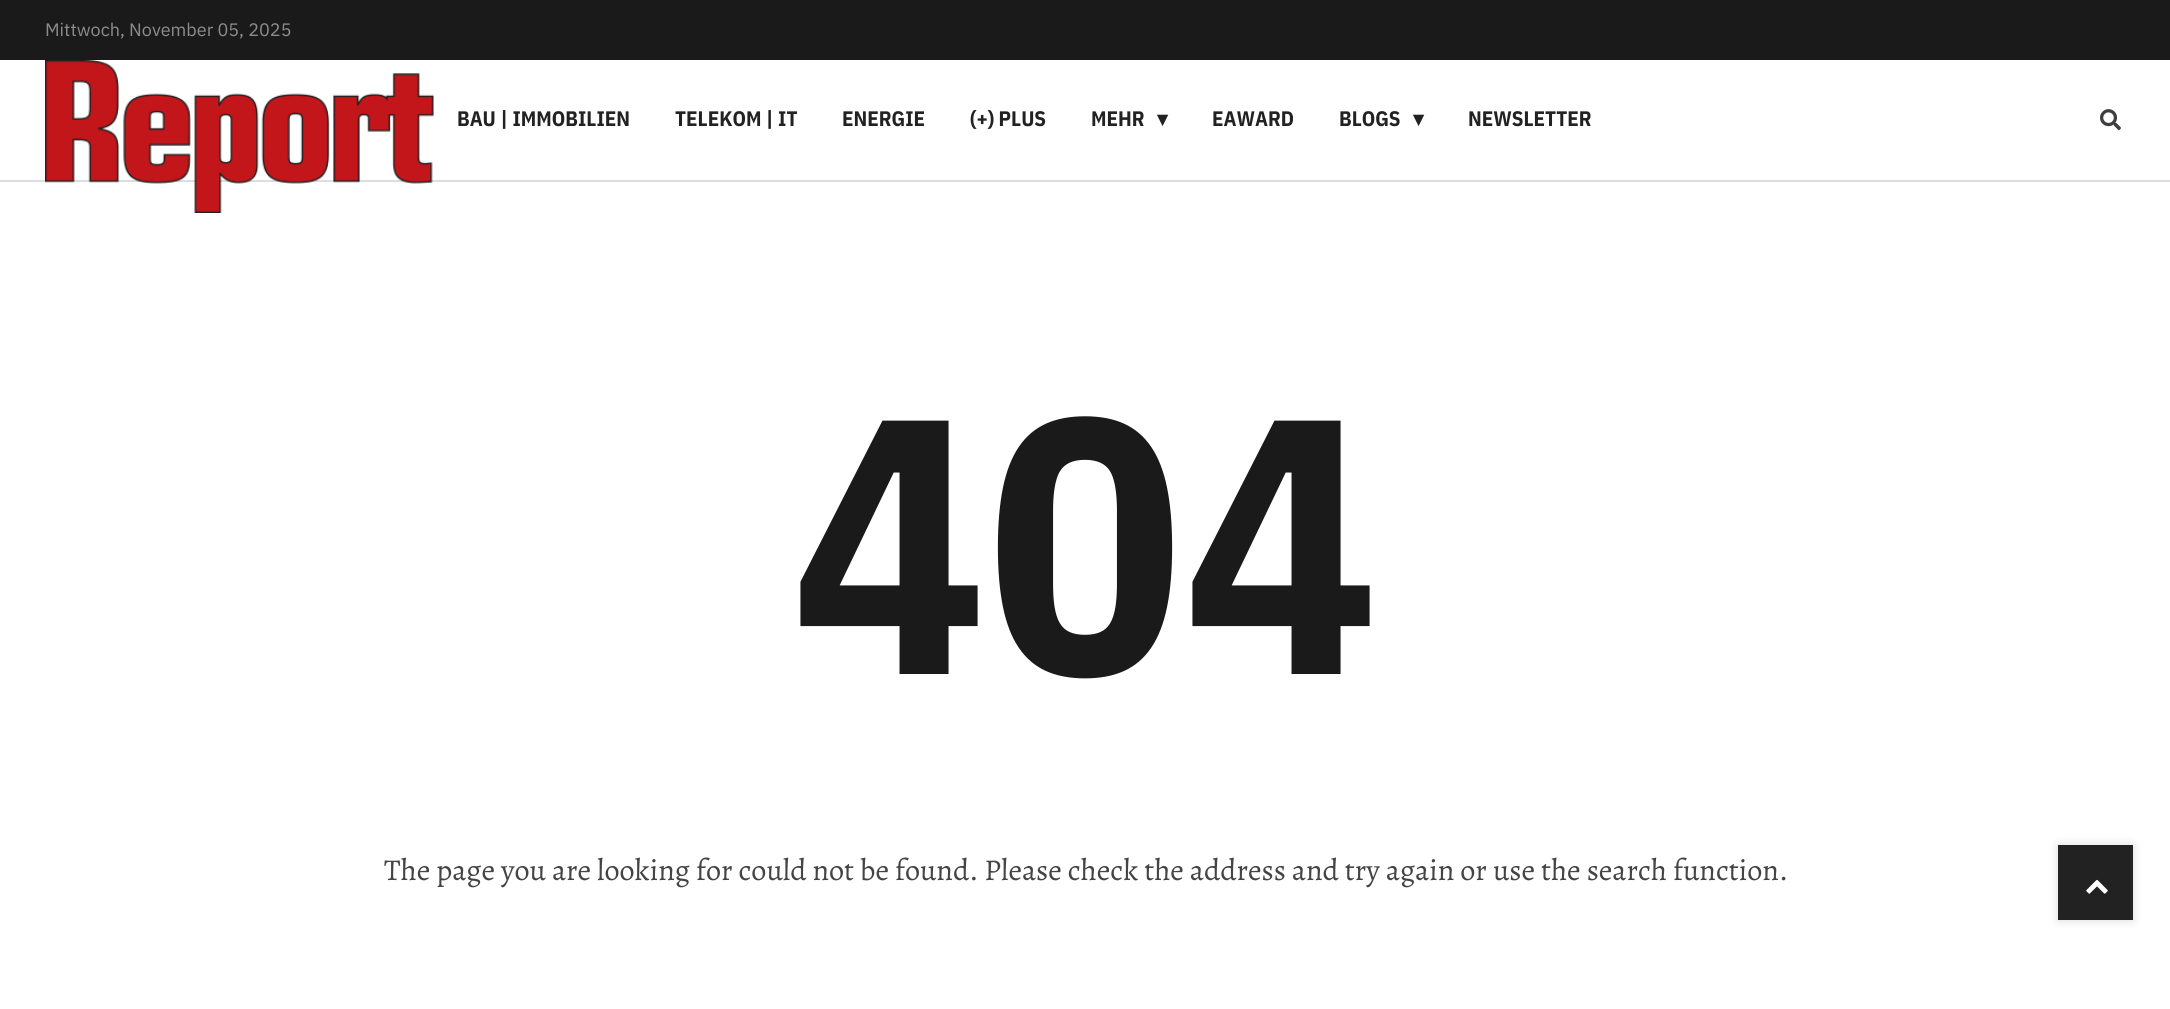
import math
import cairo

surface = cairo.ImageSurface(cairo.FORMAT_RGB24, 2170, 1009)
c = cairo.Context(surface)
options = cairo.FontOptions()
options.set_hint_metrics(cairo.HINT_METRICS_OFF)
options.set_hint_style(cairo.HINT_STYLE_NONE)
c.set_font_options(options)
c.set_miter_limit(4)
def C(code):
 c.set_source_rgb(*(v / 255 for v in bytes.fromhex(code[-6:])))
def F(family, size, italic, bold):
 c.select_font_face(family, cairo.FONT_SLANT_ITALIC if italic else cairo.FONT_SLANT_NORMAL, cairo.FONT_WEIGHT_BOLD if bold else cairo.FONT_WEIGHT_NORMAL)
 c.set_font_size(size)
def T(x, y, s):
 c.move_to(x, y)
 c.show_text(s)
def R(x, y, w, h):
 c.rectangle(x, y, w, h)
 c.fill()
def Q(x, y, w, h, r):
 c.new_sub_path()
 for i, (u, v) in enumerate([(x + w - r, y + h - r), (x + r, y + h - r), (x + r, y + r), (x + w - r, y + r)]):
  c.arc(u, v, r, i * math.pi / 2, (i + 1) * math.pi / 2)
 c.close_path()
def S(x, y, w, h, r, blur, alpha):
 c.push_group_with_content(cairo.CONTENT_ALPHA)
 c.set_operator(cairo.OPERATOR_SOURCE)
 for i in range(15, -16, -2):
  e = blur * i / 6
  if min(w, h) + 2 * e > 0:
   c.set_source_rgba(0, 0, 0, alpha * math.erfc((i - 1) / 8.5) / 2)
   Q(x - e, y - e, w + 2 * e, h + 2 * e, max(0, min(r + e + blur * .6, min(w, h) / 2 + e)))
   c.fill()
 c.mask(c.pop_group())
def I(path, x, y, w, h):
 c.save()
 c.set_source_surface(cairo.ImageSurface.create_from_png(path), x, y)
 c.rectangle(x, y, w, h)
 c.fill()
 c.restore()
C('ffffff')
c.paint()
C('dddddd')
R(0,180,2170,2)
C('1a1a1a')
R(0,0,2170,60)
F('IBM Plex Sans',18,0,0)
C('8d8d8d')
T(45,36,'Mittwoch, November 05, 2025')
I('1.png',45,60,389,153)
F('IBM Plex Sans Condensed',21,0,1)
C('222222')
T(457,126,'BAU | IMMOBILIEN')
T(675,126,'TELEKOM | IT')
T(842,126,'ENERGIE')
T(970,126,'(+) PLUS')
T(1091,126,'MEHR')
F('DejaVu Sans',21,0,1)
T(1157,126,'▾')
F('IBM Plex Sans Condensed',21,0,1)
T(1212,126,'EAWARD')
T(1339,126,'BLOGS')
F('DejaVu Sans',21,0,1)
T(1413,126,'▾')
F('IBM Plex Sans Condensed',21,0,1)
T(1468,126,'NEWSLETTER')
I('2.png',2100,109,21,22)
F('IBM Plex Sans Condensed',363,0,1)
C('1a1a1a')
T(791,674,'404')
F('Alegreya',30.25,0,0)
C('444444')
T(384,880,'The page you are looking for could not be found. Please check the address and try again or use the search function.')
C('000000')
S(2058,845,75,75,0,5,.15)
C('222222')
R(2058,845,75,75)
I('3.png',2086,879,22,15)
surface.write_to_png('o.png')
